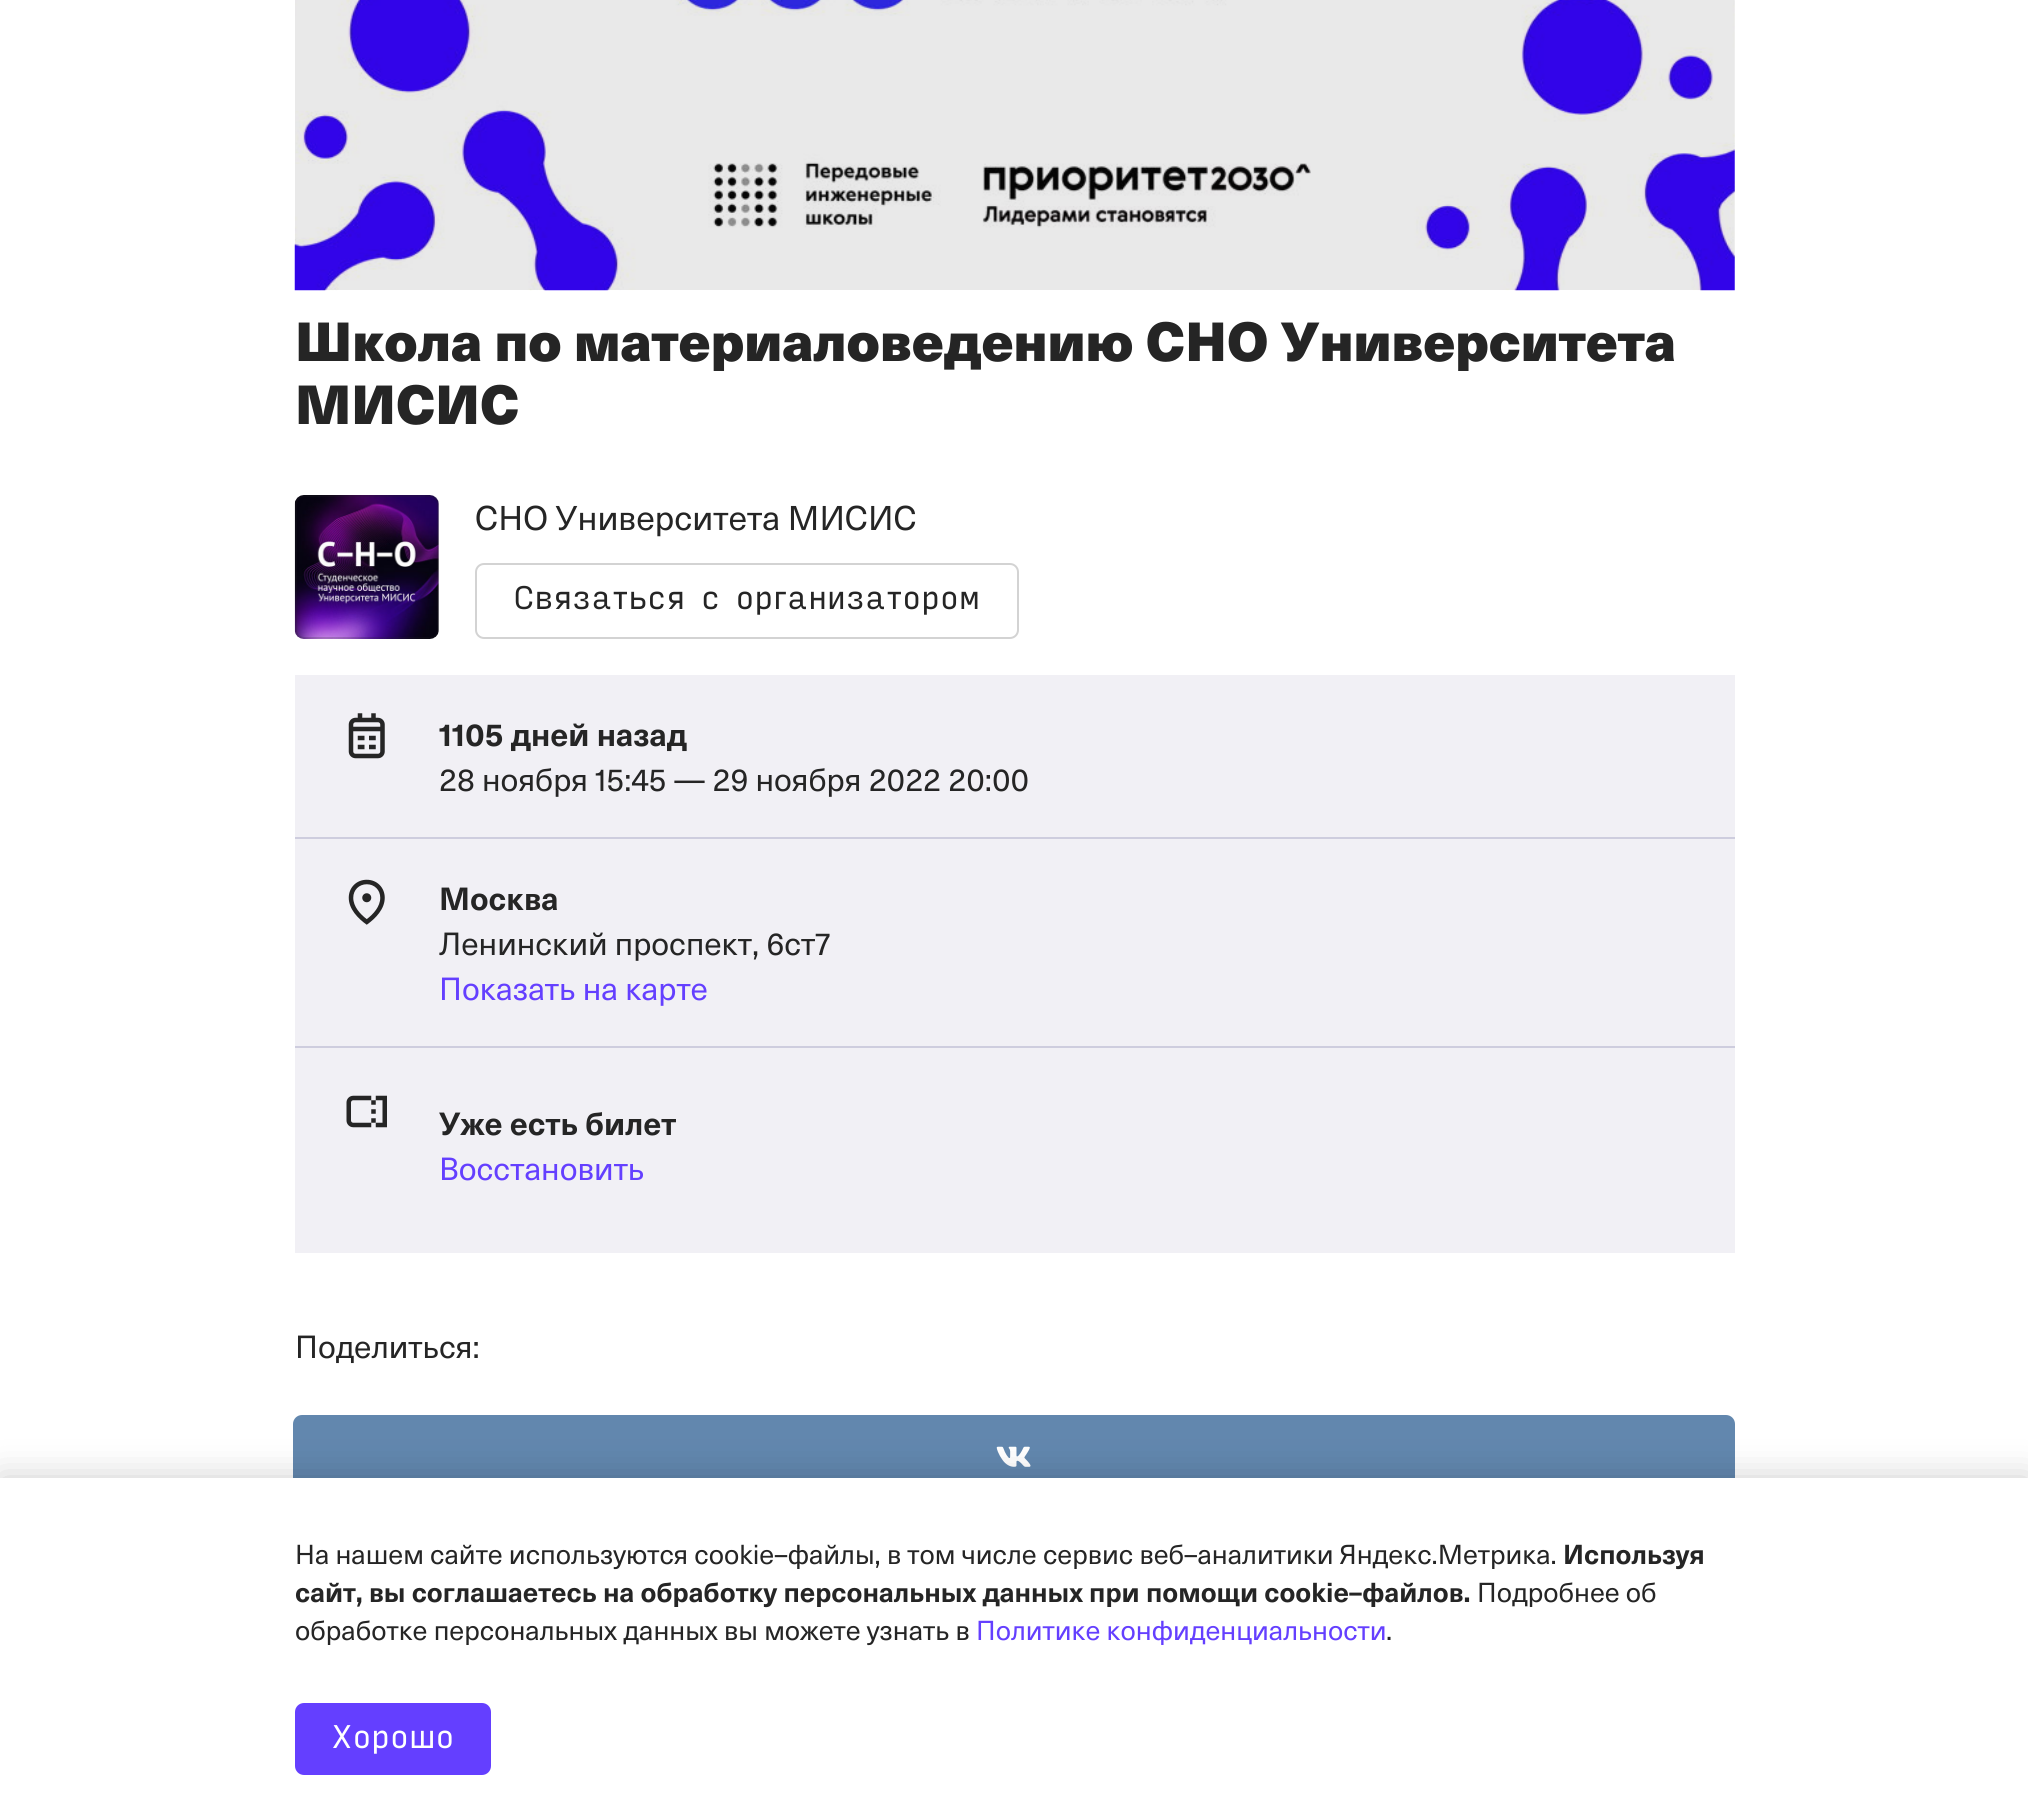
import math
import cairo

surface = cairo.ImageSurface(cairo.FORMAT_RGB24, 2028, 1811)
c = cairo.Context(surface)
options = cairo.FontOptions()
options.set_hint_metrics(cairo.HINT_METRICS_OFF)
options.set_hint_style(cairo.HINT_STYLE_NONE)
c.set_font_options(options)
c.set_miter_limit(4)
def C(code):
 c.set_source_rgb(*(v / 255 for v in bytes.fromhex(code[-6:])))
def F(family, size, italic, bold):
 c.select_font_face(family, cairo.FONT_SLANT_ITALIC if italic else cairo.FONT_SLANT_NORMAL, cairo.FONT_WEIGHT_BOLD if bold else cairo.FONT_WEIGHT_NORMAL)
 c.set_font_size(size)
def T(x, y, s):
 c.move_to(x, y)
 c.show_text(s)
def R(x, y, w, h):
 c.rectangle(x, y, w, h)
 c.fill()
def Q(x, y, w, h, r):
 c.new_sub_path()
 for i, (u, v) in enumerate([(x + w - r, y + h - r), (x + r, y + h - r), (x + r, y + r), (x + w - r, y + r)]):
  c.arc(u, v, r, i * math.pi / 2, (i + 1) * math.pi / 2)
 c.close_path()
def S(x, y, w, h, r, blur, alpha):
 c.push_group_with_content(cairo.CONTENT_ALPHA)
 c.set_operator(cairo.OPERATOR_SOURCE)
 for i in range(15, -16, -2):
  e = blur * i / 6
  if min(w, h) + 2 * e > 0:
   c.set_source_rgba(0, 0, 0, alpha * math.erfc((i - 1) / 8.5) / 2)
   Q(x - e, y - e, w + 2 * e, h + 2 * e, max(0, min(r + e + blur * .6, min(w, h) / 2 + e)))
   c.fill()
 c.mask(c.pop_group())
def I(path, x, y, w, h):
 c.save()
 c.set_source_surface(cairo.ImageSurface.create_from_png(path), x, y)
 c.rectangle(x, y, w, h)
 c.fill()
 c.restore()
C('ffffff')
c.paint()
I('1.png',294,0,1441,291)
F('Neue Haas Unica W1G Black',54,0,0)
C('252525')
T(295,361,'Школа по материаловедению СНО Университета')
T(295,424,'МИСИС')
I('2.png',294,495,145,144)
Q(296,496,142,142,8)
c.set_source_rgba(0.145,0.145,0.145,0.2)
c.stroke()
F('Neue Haas Unica W1G',33.75,0,0)
C('252525')
T(475,530,'СНО Университета МИСИС')
Q(476,564,542,74,8)
C('d3d3d3')
c.stroke()
F('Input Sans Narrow',31.5,0,0)
C('252525')
T(513,609,'Связаться с организатором')
C('f1f0f5')
R(295,675,1440,162)
I('3.png',348,713,37,46)
F('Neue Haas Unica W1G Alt',31.5,0,1)
C('252525')
T(439,746,'1105 дней назад')
F('Neue Haas Unica W1G Alt',31.5,0,0)
T(439,791,'28 ноября 15:45 — 29 ноября 2022 20:00')
C('f1f0f5')
R(295,839,1440,207)
C('cecdde')
R(295,837,1440,2)
I('4.png',348,879,37,46)
F('Neue Haas Unica W1G',31.5,0,1)
C('252525')
T(439,910,'Москва')
F('Neue Haas Unica W1G Alt',31.5,0,0)
T(439,955,'Ленинский проспект, 6ст7')
F('Neue Haas Unica W1G',31.5,0,0)
C('643fff')
T(439,1000,'Показать на карте')
C('f1f0f5')
R(295,1048,1440,205)
C('cecdde')
R(295,1046,1440,2)
I('5.png',346,1095,41,33)
F('Neue Haas Unica W1G',31.5,0,1)
C('252525')
T(439,1135,'Уже есть билет')
F('Neue Haas Unica W1G',31.5,0,0)
C('643fff')
T(439,1180,'Восстановить')
C('252525')
T(295,1358,'Поделиться:')
C('6287ae')
Q(293,1415,1442,72,9)
c.fill()
I('6.png',996,1446,35,21)
C('000000')
S(0,1478,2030,333,0,18,.2)
C('ffffff')
R(0,1478,2028,333)
F('Neue Haas Unica W1G',27,0,0)
C('252525')
T(295,1564,'На нашем сайте используются cookie–файлы, в том числе сервис веб–аналитики Яндекс.Метрика.')
F('Neue Haas Unica W1G',27,0,1)
T(1563,1564,'Используя')
T(295,1602,'сайт, вы соглашаетесь на обработку персональных данных при помощи cookie–файлов.')
F('Neue Haas Unica W1G',27,0,0)
T(1477,1602,'Подробнее об')
T(295,1640,'обработке персональных данных вы можете узнать в')
C('643fff')
T(976,1640,'Политике конфиденциальности')
C('252525')
T(1386,1640,'.')
C('643fff')
Q(295,1703,196,72,9)
c.fill()
F('Input Sans Narrow',31.5,0,0)
C('ffffff')
T(331,1748,'Хорошо')
surface.write_to_png('o.png')
